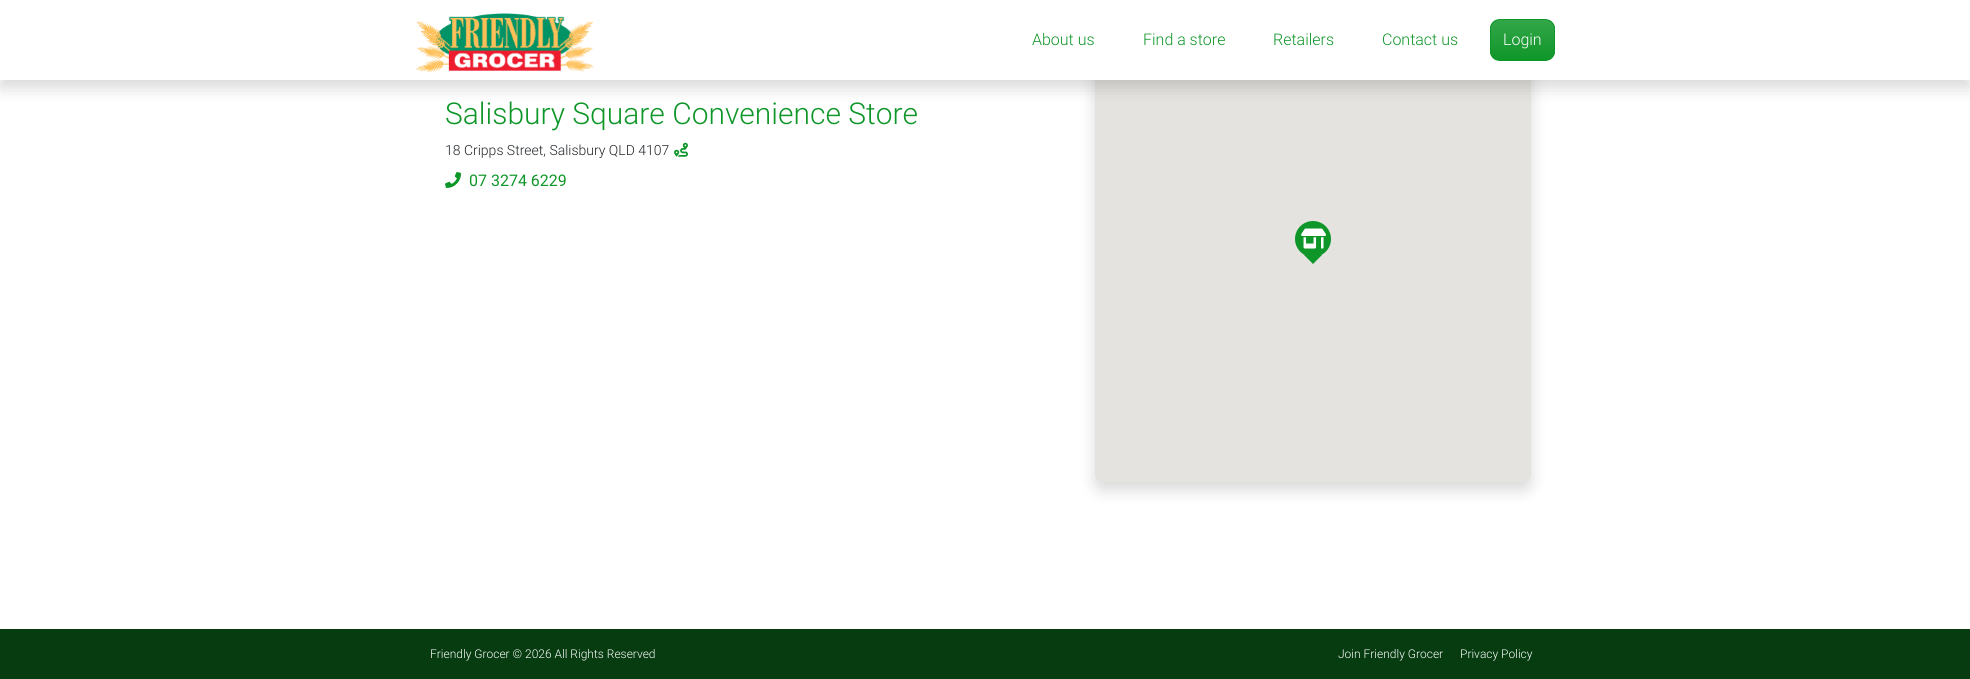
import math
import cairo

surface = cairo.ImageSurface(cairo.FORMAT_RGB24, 1970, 679)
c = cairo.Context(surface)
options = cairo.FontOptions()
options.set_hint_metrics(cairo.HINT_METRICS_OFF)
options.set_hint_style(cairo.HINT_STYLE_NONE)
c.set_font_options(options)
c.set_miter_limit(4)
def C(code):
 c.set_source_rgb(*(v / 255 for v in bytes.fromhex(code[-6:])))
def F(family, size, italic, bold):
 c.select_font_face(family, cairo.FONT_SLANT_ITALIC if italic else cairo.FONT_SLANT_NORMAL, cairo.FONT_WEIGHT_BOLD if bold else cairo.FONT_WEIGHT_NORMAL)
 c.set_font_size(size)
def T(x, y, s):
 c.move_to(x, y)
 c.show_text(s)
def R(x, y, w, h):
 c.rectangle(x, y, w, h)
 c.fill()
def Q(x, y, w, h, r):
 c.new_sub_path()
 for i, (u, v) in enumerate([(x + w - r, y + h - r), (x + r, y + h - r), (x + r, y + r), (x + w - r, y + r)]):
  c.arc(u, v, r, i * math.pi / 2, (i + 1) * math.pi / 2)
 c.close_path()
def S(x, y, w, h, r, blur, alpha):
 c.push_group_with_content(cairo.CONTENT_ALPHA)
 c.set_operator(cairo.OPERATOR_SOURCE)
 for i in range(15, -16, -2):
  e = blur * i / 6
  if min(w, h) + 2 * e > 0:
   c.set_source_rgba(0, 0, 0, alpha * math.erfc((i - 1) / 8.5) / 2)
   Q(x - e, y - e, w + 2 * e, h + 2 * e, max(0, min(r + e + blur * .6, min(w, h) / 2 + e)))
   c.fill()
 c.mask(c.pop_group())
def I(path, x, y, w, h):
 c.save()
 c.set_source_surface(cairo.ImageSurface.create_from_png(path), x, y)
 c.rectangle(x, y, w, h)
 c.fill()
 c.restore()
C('ffffff')
c.paint()
C('000000')
S(1095,40,436,450,8,8,.15)
C('e5e3df')
Q(1095,32,436,450,8)
c.fill()
C('000000')
S(0,8,1970,80,0,8,.15)
C('ffffff')
R(0,0,1970,80)
I('1.png',416,13,178,59)
F('Roboto Light',16,0,0)
C('0f9629')
T(1032,45,'About us')
T(1143,45,'Find a store')
T(1273,45,'Retailers')
T(1382,45,'Contact us')
c.save()
Q(1490,19,65,42,10)
c.clip()
gradient = cairo.LinearGradient(1523,20,1523,60)
gradient.add_color_stop_rgba(0,0.2,0.651,0.286,1)
gradient.add_color_stop_rgba(1,0.059,0.588,0.161,1)
c.set_source(gradient)
R(1490,20,65,40)
c.restore()
Q(1490.5,19.5,64,41,9.5)
c.set_line_width(1)
c.stroke()
C('ffffff')
T(1503,45,'Login')
F('Roboto Light',30,0,0)
C('0f9629')
T(445,124,'Salisbury Square Convenience Store')
F('Roboto Light',14,0,0)
C('212529')
T(445,155,'18 Cripps Street, Salisbury QLD 4107')
I('2.png',674,142,14,15)
I('3.png',445,172,16,16)
F('Roboto',16,0,0)
C('0f9629')
T(469,186,'07 3274 6229')
c.new_path()
c.arc(1313,239,18,0,2 * math.pi)
c.fill()
I('4.png',1301,228,25,21)
c.new_path()
c.move_to(1304,255)
c.line_to(1322,255)
c.line_to(1313,264)
c.close_path()
c.fill()
C('063c10')
R(0,629,1970,50)
F('Roboto Light',12,0,0)
C('ffffff')
T(430,658,'Friendly Grocer © 2026 All Rights Reserved')
T(1338,658,'Join Friendly Grocer')
T(1460,658,'Privacy Policy')
surface.write_to_png('o.png')
